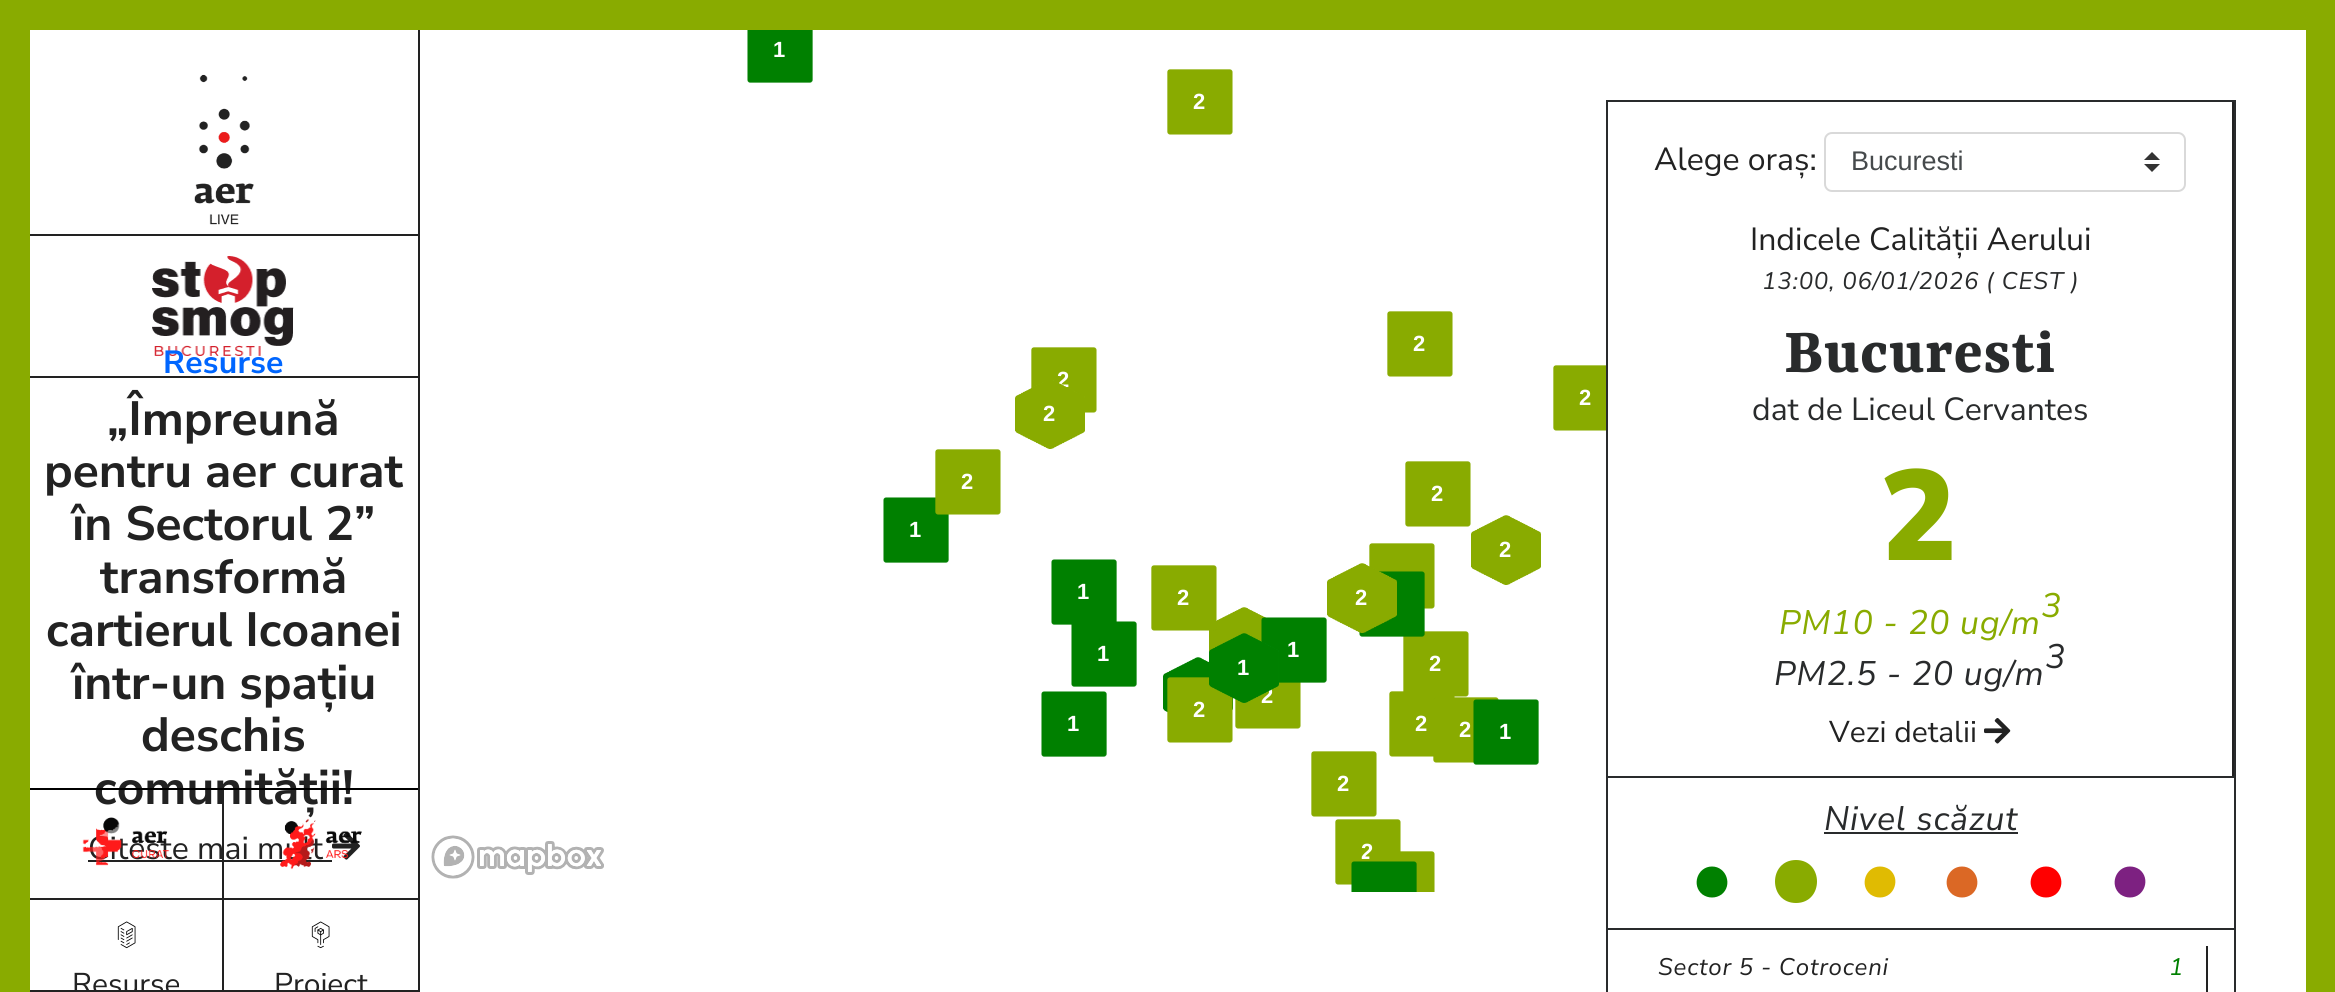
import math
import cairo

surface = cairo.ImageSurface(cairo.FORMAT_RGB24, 2335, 992)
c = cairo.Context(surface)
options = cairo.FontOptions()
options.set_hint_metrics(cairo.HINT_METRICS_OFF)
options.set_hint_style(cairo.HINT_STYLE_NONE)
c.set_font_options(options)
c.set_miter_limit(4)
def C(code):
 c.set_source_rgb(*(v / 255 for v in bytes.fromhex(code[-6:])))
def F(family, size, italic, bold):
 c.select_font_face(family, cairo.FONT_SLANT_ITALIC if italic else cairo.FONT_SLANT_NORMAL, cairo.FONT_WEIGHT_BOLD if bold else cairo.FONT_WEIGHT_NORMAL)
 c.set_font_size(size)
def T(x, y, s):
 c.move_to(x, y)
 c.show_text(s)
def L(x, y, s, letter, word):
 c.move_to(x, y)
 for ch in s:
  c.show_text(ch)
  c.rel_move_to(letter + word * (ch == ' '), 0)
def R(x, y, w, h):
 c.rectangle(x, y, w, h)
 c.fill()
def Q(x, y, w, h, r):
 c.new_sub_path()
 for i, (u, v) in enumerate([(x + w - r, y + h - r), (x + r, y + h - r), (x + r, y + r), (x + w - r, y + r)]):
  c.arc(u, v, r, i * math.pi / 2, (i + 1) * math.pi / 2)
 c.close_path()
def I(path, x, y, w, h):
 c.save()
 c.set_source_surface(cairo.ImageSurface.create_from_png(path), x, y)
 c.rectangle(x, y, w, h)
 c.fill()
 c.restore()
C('89ab00')
c.paint()
C('ffffff')
R(30,30,388,960)
C('222222')
R(418,30,2,962)
R(30,990,390,2)
I('1.png',194,74,60,151)
R(30,234,388,2)
R(30,376,388,2)
I('2.png',152,256,142,100)
F('Nunito Sans',32,0,1)
C('0066ff')
L(163,373,'Resurse',.25,0)
F('Nunito Sans',48,0,1)
C('222222')
T(107,435,'„Împreună')
T(44,487,'pentru aer curat')
T(72,540,'în Sectorul 2”')
T(100,593,'transformă')
T(46,646,'cartierul Icoanei')
T(72,699,'într-un spațiu')
T(141,751,'deschis')
T(94,804,'comunității!')
F('Nunito Sans',32,0,0)
T(88,859,'Citeste mai mult')
R(88,860,244,2)
I('3.png',332,832,28,28)
C('000000')
R(30,788,388,2)
C('222222')
R(30,898,388,2)
R(222,790,2,108)
I('4.png',82,817,88,49)
I('5.png',280,818,82,52)
R(222,900,2,92)
I('6.png',117,921,19,28)
F('Nunito Sans',30,0,0)
T(72,994,'Resurse')
I('7.png',311,921,19,28)
T(274,994,'Proiect')
C('ffffff')
R(420,30,1886,962)
I('8.png',431,835,173,44)
I('9.png',747,30,66,53)
F('Liberation Sans',22,0,1)
T(773,57,'1')
I('10.png',1167,69,66,66)
T(1193,109,'2')
I('10.png',1387,311,66,66)
T(1413,351,'2')
I('10.png',1031,347,66,66)
T(1057,387,'2')
I('11.png',1553,365,53,66)
T(1579,405,'2')
I('12.png',1015,380,70,69)
T(1043,421,'2')
I('14.png',883,497,66,66)
I('13.png',935,449,66,66)
T(961,489,'2')
I('10.png',1405,461,66,66)
T(1431,501,'2')
T(909,537,'1')
I('15.png',1369,543,66,66)
I('16.png',1471,515,70,70)
T(1499,557,'2')
I('21.png',1071,621,66,66)
I('17.png',1051,559,66,66)
T(1077,599,'1')
I('22.png',1209,607,57,46)
I('18.png',1151,565,66,66)
T(1177,605,'2')
I('10.png',1403,631,66,66)
I('19.png',1359,571,66,66)
I('20.png',1327,563,70,70)
T(1355,605,'2')
T(1097,661,'1')
I('26.png',1235,682,66,47)
I('23.png',1261,617,66,66)
T(1287,657,'1')
I('24.png',1163,657,70,56)
T(1261,703,'2')
I('27.png',1167,677,66,66)
I('25.png',1209,633,70,70)
T(1237,675,'1')
T(1429,671,'2')
T(1193,717,'2')
I('21.png',1041,691,66,66)
T(1067,731,'1')
I('28.png',1389,691,66,66)
T(1415,731,'2')
I('29.png',1433,697,66,66)
T(1459,737,'2')
I('30.png',1473,699,66,66)
T(1499,739,'1')
I('10.png',1311,751,66,66)
T(1337,791,'2')
I('10.png',1335,819,66,66)
T(1361,859,'2')
I('31.png',1369,851,66,41)
I('32.png',1351,861,66,31)
c.rectangle(1607,101,628,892)
C('292b2c')
c.stroke()
C('222222')
R(2232,102,2,674)
F('Nunito Sans',32,0,0)
T(1654,170,'Alege oraș:')
C('333333')
c.new_path()
c.move_to(2152,152)
c.line_to(2144,160)
c.line_to(2160,160)
c.close_path()
c.move_to(2152,172)
c.line_to(2144,164)
c.line_to(2160,164)
c.close_path()
c.fill()
Q(1825,133,360,58,7)
C('d9d9d9')
c.stroke()
F('Liberation Sans',27,0,0)
C('464a4c')
T(1851,170,'Bucuresti')
F('Nunito Sans',32,0,0)
C('222222')
T(1750,250,'Indicele Calității Aerului')
F('Nunito Sans ExtraLight',24,1,0)
C('292b2c')
L(1762,289,'13:00, 06/01/2026 ( CEST )',.8,0)
F('Yrsa',68,0,1)
L(1784,372,'Bucuresti',.5,0)
F('Nunito Sans',32,0,0)
T(1752,420,'dat de Liceul Cervantes')
F('Nunito Sans Black',128,0,0)
C('89ab00')
L(1880,560,'2',3,0)
F('Nunito Sans ExtraLight',34,1,0)
L(2041,617,'3',.8,0)
L(1779,634,'PM10 - 20 ug/m',.8,0)
C('292b2c')
L(2045,668,'3',.8,0)
L(1774,685,'PM2.5 - 20 ug/m',.8,0)
F('Nunito Sans',30,0,0)
C('222222')
T(1829,742,'Vezi detalii')
I('33.png',1984,718,27,26)
C('292b2c')
R(1608,776,626,2)
F('Nunito Sans ExtraLight',34,1,0)
L(1824,830,'Nivel scăzut',.8,0)
R(1824,832,194,2)
C('008000')
c.new_path()
c.move_to(1712,866.5)
c.curve_to(1697.5,866.5,1691,885.5,1702.5,894.5)
c.curve_to(1705.5,896.5,1708.5,897.5,1712,897.5)
c.curve_to(1715.5,897.5,1718.5,896.5,1721.5,894.5)
c.curve_to(1733,885.5,1726.5,866.5,1712,866.5)
c.close_path()
c.fill()
C('89ab00')
c.new_path()
c.move_to(1796,860)
c.curve_to(1768,860,1768,903,1796,903)
c.curve_to(1824,903,1824,860,1796,860)
c.close_path()
c.fill()
C('e0bb02')
c.new_path()
c.move_to(1880,866.5)
c.curve_to(1865.5,866.5,1859,885.5,1870.5,894.5)
c.curve_to(1873.5,896.5,1876.5,897.5,1880,897.5)
c.curve_to(1894.5,897.5,1901,878.5,1889.5,869.5)
c.curve_to(1886.5,867.5,1883.5,866.5,1880,866.5)
c.close_path()
c.fill()
C('db6825')
c.new_path()
c.move_to(1962,866.5)
c.curve_to(1947.5,866.5,1941,885.5,1952.5,894.5)
c.curve_to(1955.5,896.5,1958.5,897.5,1962,897.5)
c.curve_to(1965.5,897.5,1968.5,896.5,1971.5,894.5)
c.curve_to(1983,885.5,1976.5,866.5,1962,866.5)
c.close_path()
c.fill()
C('ff0000')
c.new_path()
c.move_to(2046,866.5)
c.curve_to(2031.5,866.5,2025,885.5,2036.5,894.5)
c.curve_to(2039.5,896.5,2042.5,897.5,2046,897.5)
c.curve_to(2049.5,897.5,2052.5,896.5,2055.5,894.5)
c.curve_to(2067,885.5,2060.5,866.5,2046,866.5)
c.close_path()
c.fill()
C('7d2181')
c.new_path()
c.move_to(2130,866.5)
c.curve_to(2115.5,866.5,2109,885.5,2120.5,894.5)
c.curve_to(2123.5,896.5,2126.5,897.5,2130,897.5)
c.curve_to(2144.5,897.5,2151,878.5,2139.5,869.5)
c.curve_to(2136.5,867.5,2133.5,866.5,2130,866.5)
c.close_path()
c.fill()
C('292b2c')
R(1608,928,626,2)
F('Nunito Sans ExtraLight',24,1,0)
C('222222')
L(1658,975,'Sector 5 - Cotroceni',.8,0)
C('008000')
L(2169,975,'1',.8,0)
C('222222')
R(2206,946,2,46)
surface.write_to_png('o.png')
